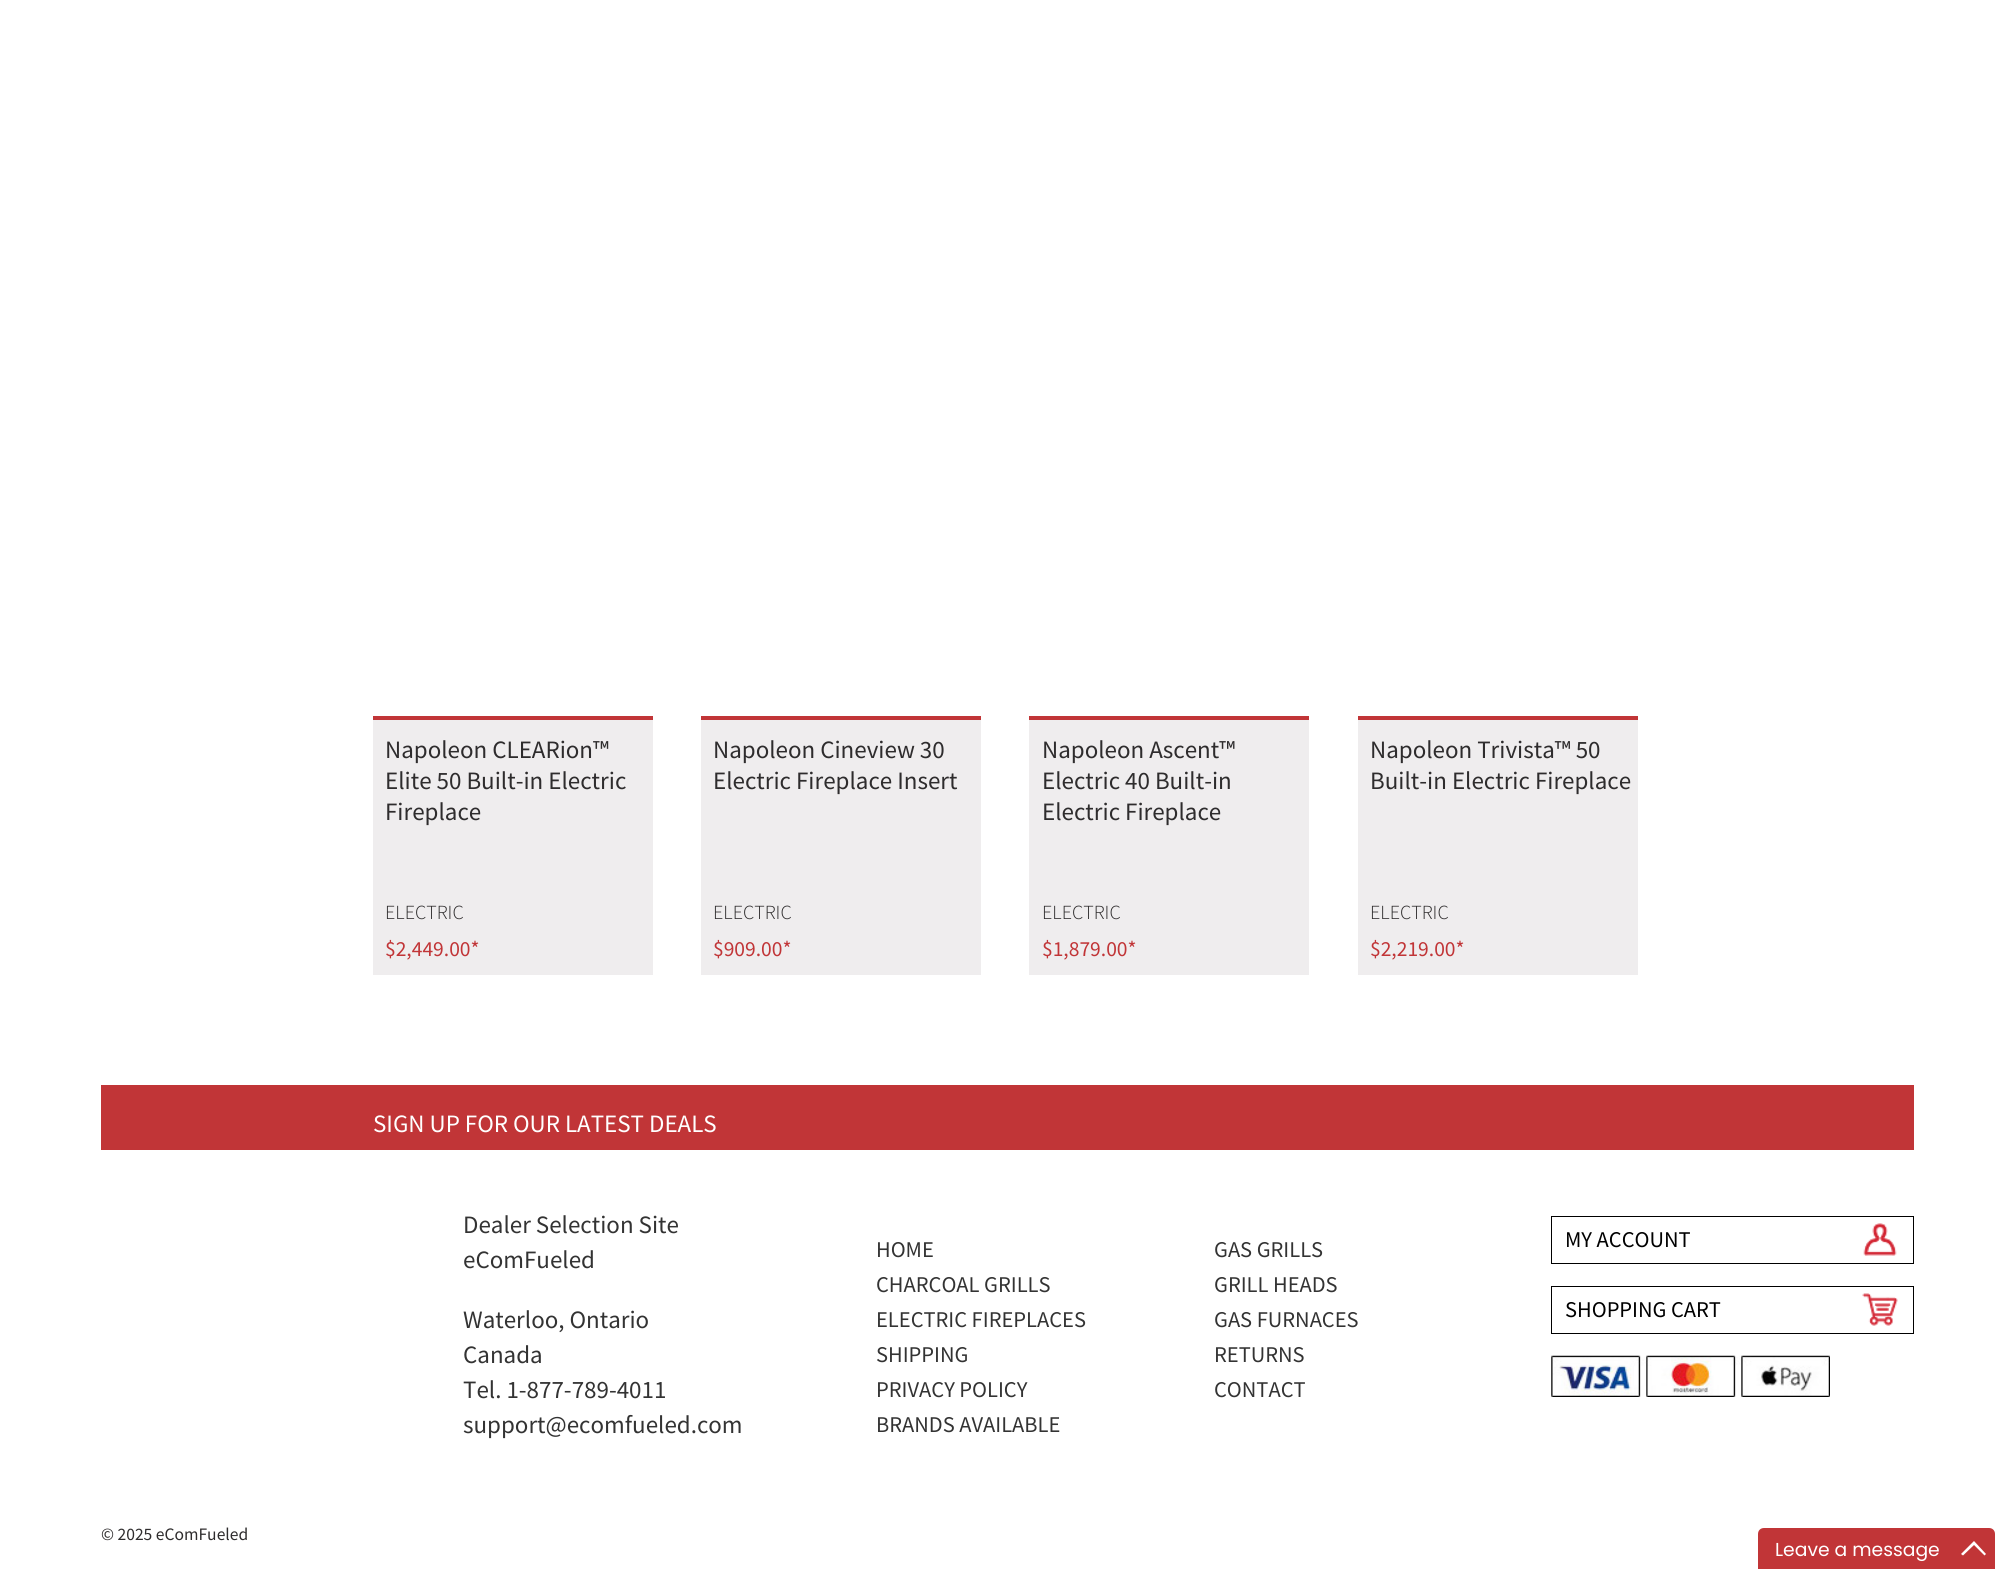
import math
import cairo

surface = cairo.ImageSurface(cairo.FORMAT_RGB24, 2015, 1569)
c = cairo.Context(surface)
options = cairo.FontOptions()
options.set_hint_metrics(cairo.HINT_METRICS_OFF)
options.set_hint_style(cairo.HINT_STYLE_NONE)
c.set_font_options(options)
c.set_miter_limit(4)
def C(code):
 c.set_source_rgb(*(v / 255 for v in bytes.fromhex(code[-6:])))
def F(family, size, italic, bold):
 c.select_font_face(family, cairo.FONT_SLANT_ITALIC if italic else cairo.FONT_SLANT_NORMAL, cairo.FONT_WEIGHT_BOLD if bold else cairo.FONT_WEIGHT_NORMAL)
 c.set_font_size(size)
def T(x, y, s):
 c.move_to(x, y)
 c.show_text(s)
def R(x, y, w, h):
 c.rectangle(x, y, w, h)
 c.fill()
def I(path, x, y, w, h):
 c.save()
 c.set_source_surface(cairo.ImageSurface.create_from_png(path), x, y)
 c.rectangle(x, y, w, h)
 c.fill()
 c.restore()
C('ffffff')
c.paint()
C('efedee')
R(373,720,280,255)
C('c13537')
R(373,716,280,4)
F('Source Sans Pro',25,0,0)
C('2e2c2d')
T(385,758,'Napoleon CLEARion™')
T(385,789,'Elite 50 Built-in Electric')
T(385,820,'Fireplace')
F('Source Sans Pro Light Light',20,0,0)
T(385,919,'ELECTRIC')
F('Source Sans Pro',21.5,0,0)
C('c13537')
T(385,956,'$2,449.00*')
C('efedee')
R(701,720,280,255)
C('c13537')
R(701,716,280,4)
F('Source Sans Pro',25,0,0)
C('2e2c2d')
T(713,758,'Napoleon Cineview 30')
T(713,789,'Electric Fireplace Insert')
F('Source Sans Pro Light Light',20,0,0)
T(713,919,'ELECTRIC')
F('Source Sans Pro',21.5,0,0)
C('c13537')
T(713,956,'$909.00*')
C('efedee')
R(1029,720,280,255)
C('c13537')
R(1029,716,280,4)
F('Source Sans Pro',25,0,0)
C('2e2c2d')
T(1042,758,'Napoleon Ascent™')
T(1042,789,'Electric 40 Built-in')
T(1042,820,'Electric Fireplace')
F('Source Sans Pro Light Light',20,0,0)
T(1042,919,'ELECTRIC')
F('Source Sans Pro',21.5,0,0)
C('c13537')
T(1042,956,'$1,879.00*')
C('efedee')
R(1358,720,280,255)
C('c13537')
R(1358,716,280,4)
F('Source Sans Pro',25,0,0)
C('2e2c2d')
T(1370,758,'Napoleon Trivista™ 50')
T(1370,789,'Built-in Electric Fireplace')
F('Source Sans Pro Light Light',20,0,0)
T(1370,919,'ELECTRIC')
F('Source Sans Pro',21.5,0,0)
C('c13537')
T(1370,956,'$2,219.00*')
R(101,1085,1813,65)
F('Source Sans Pro',25,0,0)
C('ffffff')
T(373,1132,'SIGN UP FOR OUR LATEST DEALS')
C('333333')
T(463,1233,'Dealer Selection Site')
T(463,1268,'eComFueled')
T(463,1328,'Waterloo, Ontario')
T(463,1363,'Canada')
T(463,1398,'Tel. 1-877-789-4011')
T(463,1433,'support@ecomfueled.com')
F('Source Sans Pro',22.5,0,0)
T(876,1257,'HOME')
T(1214,1257,'GAS GRILLS')
T(876,1292,'CHARCOAL GRILLS')
T(1214,1292,'GRILL HEADS')
T(876,1327,'ELECTRIC FIREPLACES')
T(1214,1327,'GAS FURNACES')
T(876,1362,'SHIPPING')
T(1214,1362,'RETURNS')
T(876,1397,'PRIVACY POLICY')
T(1214,1397,'CONTACT')
T(876,1432,'BRANDS AVAILABLE')
c.rectangle(1551.5,1216.5,362,47)
C('000000')
c.set_line_width(1)
c.stroke()
T(1565,1247,'MY ACCOUNT')
I('1.png',1863,1223,34,33)
c.rectangle(1551.5,1286.5,362,47)
c.stroke()
T(1565,1317,'SHOPPING CART')
I('2.png',1862,1293,36,33)
I('3.png',1551,1355,279,42)
F('Source Sans Pro',17.5,0,0)
C('2e2c2d')
T(101,1540,'© 2025 eComFueled')
C('c13537')
c.new_path()
c.move_to(1764,1528)
c.line_to(1989,1528)
c.curve_to(1992.5,1528,1995,1530.5,1995,1534)
c.line_to(1995,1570)
c.line_to(1758,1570)
c.line_to(1758,1534)
c.curve_to(1758,1530.5,1760.5,1528,1764,1528)
c.close_path()
c.fill()
F('Poppins',18.75,0,0)
C('ffffff')
T(1775,1556,'Leave a message')
c.new_path()
c.move_to(1974,1541)
c.line_to(1986,1554)
c.line_to(1984.5,1555.5)
c.line_to(1974,1545)
c.line_to(1963,1555.5)
c.line_to(1961,1554)
c.close_path()
c.fill()
surface.write_to_png('o.png')
